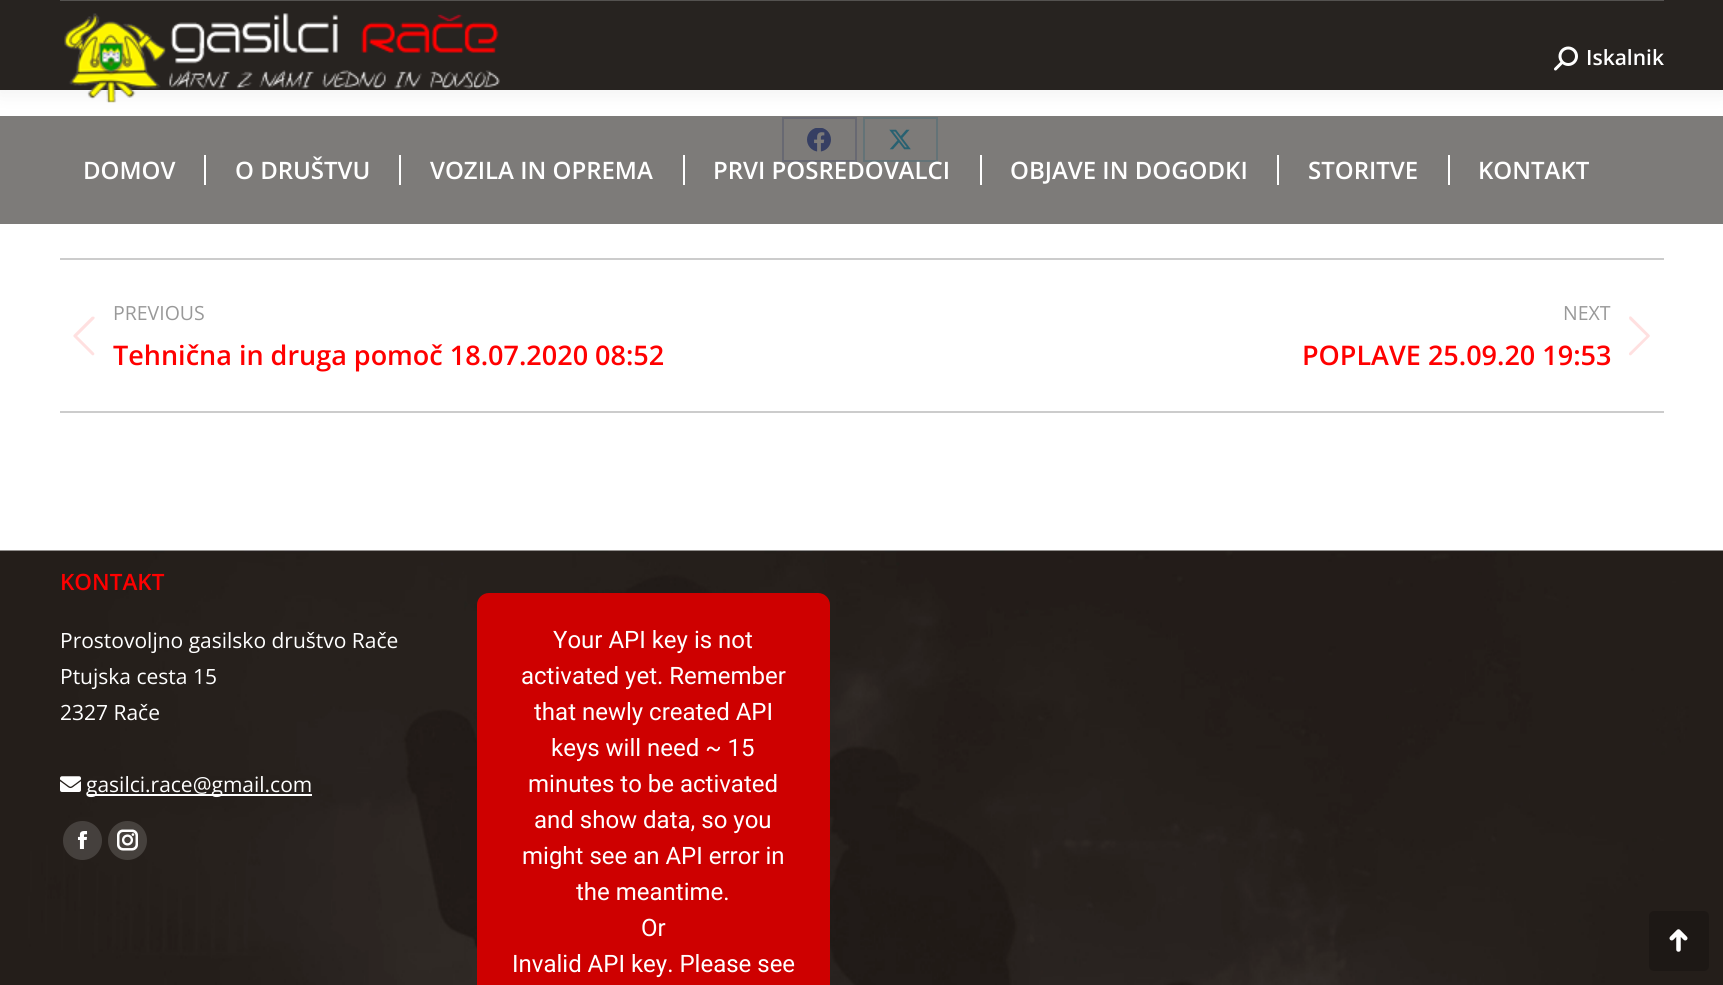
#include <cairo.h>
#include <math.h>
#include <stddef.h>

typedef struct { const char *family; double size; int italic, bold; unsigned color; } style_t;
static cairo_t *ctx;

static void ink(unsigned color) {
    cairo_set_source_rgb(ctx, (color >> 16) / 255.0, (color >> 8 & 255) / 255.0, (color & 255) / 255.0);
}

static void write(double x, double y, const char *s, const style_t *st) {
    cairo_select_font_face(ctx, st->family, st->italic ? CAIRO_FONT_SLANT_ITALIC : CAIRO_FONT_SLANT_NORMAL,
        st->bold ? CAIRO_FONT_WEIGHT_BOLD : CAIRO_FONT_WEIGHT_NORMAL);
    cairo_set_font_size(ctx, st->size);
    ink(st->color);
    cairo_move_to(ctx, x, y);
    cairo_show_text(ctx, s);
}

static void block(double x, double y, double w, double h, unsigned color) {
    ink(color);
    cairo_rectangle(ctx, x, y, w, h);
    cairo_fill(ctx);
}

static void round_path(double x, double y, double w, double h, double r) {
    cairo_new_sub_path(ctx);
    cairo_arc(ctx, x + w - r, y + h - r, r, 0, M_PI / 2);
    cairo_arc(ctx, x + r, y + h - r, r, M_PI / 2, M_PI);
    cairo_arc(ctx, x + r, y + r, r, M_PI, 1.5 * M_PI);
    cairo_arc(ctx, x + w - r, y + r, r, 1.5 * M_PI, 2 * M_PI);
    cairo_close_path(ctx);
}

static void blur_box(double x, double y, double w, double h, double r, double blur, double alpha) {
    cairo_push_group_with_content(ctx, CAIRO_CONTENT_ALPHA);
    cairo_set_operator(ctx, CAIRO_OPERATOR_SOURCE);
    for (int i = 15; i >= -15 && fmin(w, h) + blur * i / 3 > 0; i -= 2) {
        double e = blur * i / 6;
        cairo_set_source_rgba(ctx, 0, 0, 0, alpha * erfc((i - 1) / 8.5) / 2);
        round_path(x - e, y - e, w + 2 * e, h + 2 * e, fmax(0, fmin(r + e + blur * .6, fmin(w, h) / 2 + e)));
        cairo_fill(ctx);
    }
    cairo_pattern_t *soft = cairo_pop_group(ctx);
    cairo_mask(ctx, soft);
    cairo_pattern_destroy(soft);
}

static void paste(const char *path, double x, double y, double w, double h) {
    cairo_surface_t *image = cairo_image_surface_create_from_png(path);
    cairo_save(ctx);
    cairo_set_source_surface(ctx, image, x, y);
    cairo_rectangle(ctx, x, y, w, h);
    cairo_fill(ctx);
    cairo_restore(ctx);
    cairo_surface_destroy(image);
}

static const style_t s1 = {"Open Sans SemiBold", 21, 0, 0, 0xffffff};
static const style_t s2 = {"Open Sans SemiBold", 24, 0, 0, 0xffffff};
static const style_t s3 = {"Open Sans", 19.5, 0, 0, 0x999999};
static const style_t s4 = {"Open Sans SemiBold", 27, 0, 0, 0xff0000};
static const style_t s5 = {"Open Sans SemiBold", 22.5, 0, 0, 0xff0000};
static const style_t s6 = {"Open Sans", 21, 0, 0, 0xffffff};
static const style_t s7 = {"Roboto", 24, 0, 0, 0xffffff};

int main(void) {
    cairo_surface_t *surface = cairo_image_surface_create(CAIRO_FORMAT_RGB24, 1723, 985);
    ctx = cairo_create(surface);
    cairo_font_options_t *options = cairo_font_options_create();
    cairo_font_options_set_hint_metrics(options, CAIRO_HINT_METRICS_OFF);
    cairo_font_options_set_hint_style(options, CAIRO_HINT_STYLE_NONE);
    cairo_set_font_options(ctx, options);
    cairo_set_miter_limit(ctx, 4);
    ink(0xffffff);
    cairo_paint(ctx);
    block(0, 116, 1723, 108, 0x7d7b79);
    cairo_rectangle(ctx, 783, 118, 73, 43);
    ink(0x686972);
    cairo_stroke(ctx);
    cairo_rectangle(ctx, 864, 118, 73, 43);
    ink(0x647377);
    cairo_stroke(ctx);
    ink(0x000000);
    blur_box(-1, -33, 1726, 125, 0, 11, 0.07);
    block(0, 0, 1723, 90, 0x272320);
    block(60, 0, 1604, 1, 0x545250);
    paste("pic1.png", 64, 13, 436, 90);
    paste("pic2.png", 1554, 46, 24, 25);
    write(1586, 65, "Iskalnik", &s1);
    write(83, 179, "DOMOV", &s2);
    block(204, 155, 2, 30, 0xffffff);
    write(235, 179, "O DRUŠTVU", &s2);
    block(399, 155, 2, 30, 0xffffff);
    write(430, 179, "VOZILA IN OPREMA", &s2);
    block(683, 155, 2, 30, 0xffffff);
    write(713, 179, "PRVI POSREDOVALCI", &s2);
    block(980, 155, 2, 30, 0xffffff);
    write(1010, 179, "OBJAVE IN DOGODKI", &s2);
    block(1277, 155, 2, 30, 0xffffff);
    write(1308, 179, "STORITVE", &s2);
    block(1448, 155, 2, 30, 0xffffff);
    write(1478, 179, "KONTAKT", &s2);
    paste("pic3.png", 807, 128, 24, 24);
    paste("pic4.png", 889, 129, 22, 21);
    block(60, 258, 1604, 2, 0xcccccc);
    block(60, 411, 1604, 2, 0xcccccc);
    write(113, 320, "PREVIOUS", &s3);
    paste("pic5.png", 73, 316, 22, 40);
    write(113, 365, "Tehnična in druga pomoč 18.07.2020 08:52", &s4);
    write(1563, 320, "NEXT", &s3);
    write(1302, 365, "POPLAVE 25.09.20 19:53", &s4);
    paste("pic6.png", 1629, 316, 21, 40);
    paste("pic7.png", 0, 550, 1723, 435);
    write(60, 590, "KONTAKT", &s5);
    write(60, 648, "Prostovoljno gasilsko društvo Rače", &s6);
    write(60, 684, "Ptujska cesta 15", &s6);
    write(60, 720, "2327 Rače", &s6);
    paste("pic8.png", 60, 776, 21, 16);
    block(87, 794, 225, 2, 0xffffff);
    write(86, 792, "gasilci.race@gmail.com", &s6);
    cairo_set_source_rgba(ctx, 1, 1, 1, 0.15);
    cairo_new_path(ctx);
    cairo_arc(ctx, 82.5, 840.5, 19.5, 0, 2 * M_PI);
    cairo_fill(ctx);
    paste("pic9.png", 77, 831, 11, 18);
    ink(0x46413d);
    cairo_arc(ctx, 127.5, 840.5, 19.5, 0, 2 * M_PI);
    cairo_fill(ctx);
    paste("pic10.png", 117, 829, 21, 22);
    ink(0xce0000);
    round_path(477, 593, 353, 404, 12);
    cairo_fill(ctx);
    write(553, 648, "Your API key is not", &s7);
    write(521, 684, "activated yet. Remember", &s7);
    write(534, 720, "that newly created API", &s7);
    write(551, 756, "keys will need ~ 15", &s7);
    write(528, 792, "minutes to be activated", &s7);
    write(534, 828, "and show data, so you", &s7);
    write(522, 864, "might see an API error in", &s7);
    write(576, 900, "the meantime.", &s7);
    write(641, 936, "Or", &s7);
    write(512, 972, "Invalid API key. Please see", &s7);
    ink(0x1d1815);
    round_path(1649, 911, 60, 60, 5);
    cairo_fill(ctx);
    paste("pic11.png", 1669, 929, 19, 23);
    cairo_surface_write_to_png(surface, "screenshot.png");
    cairo_font_options_destroy(options);
    cairo_destroy(ctx);
    cairo_surface_destroy(surface);
    return 0;
}
